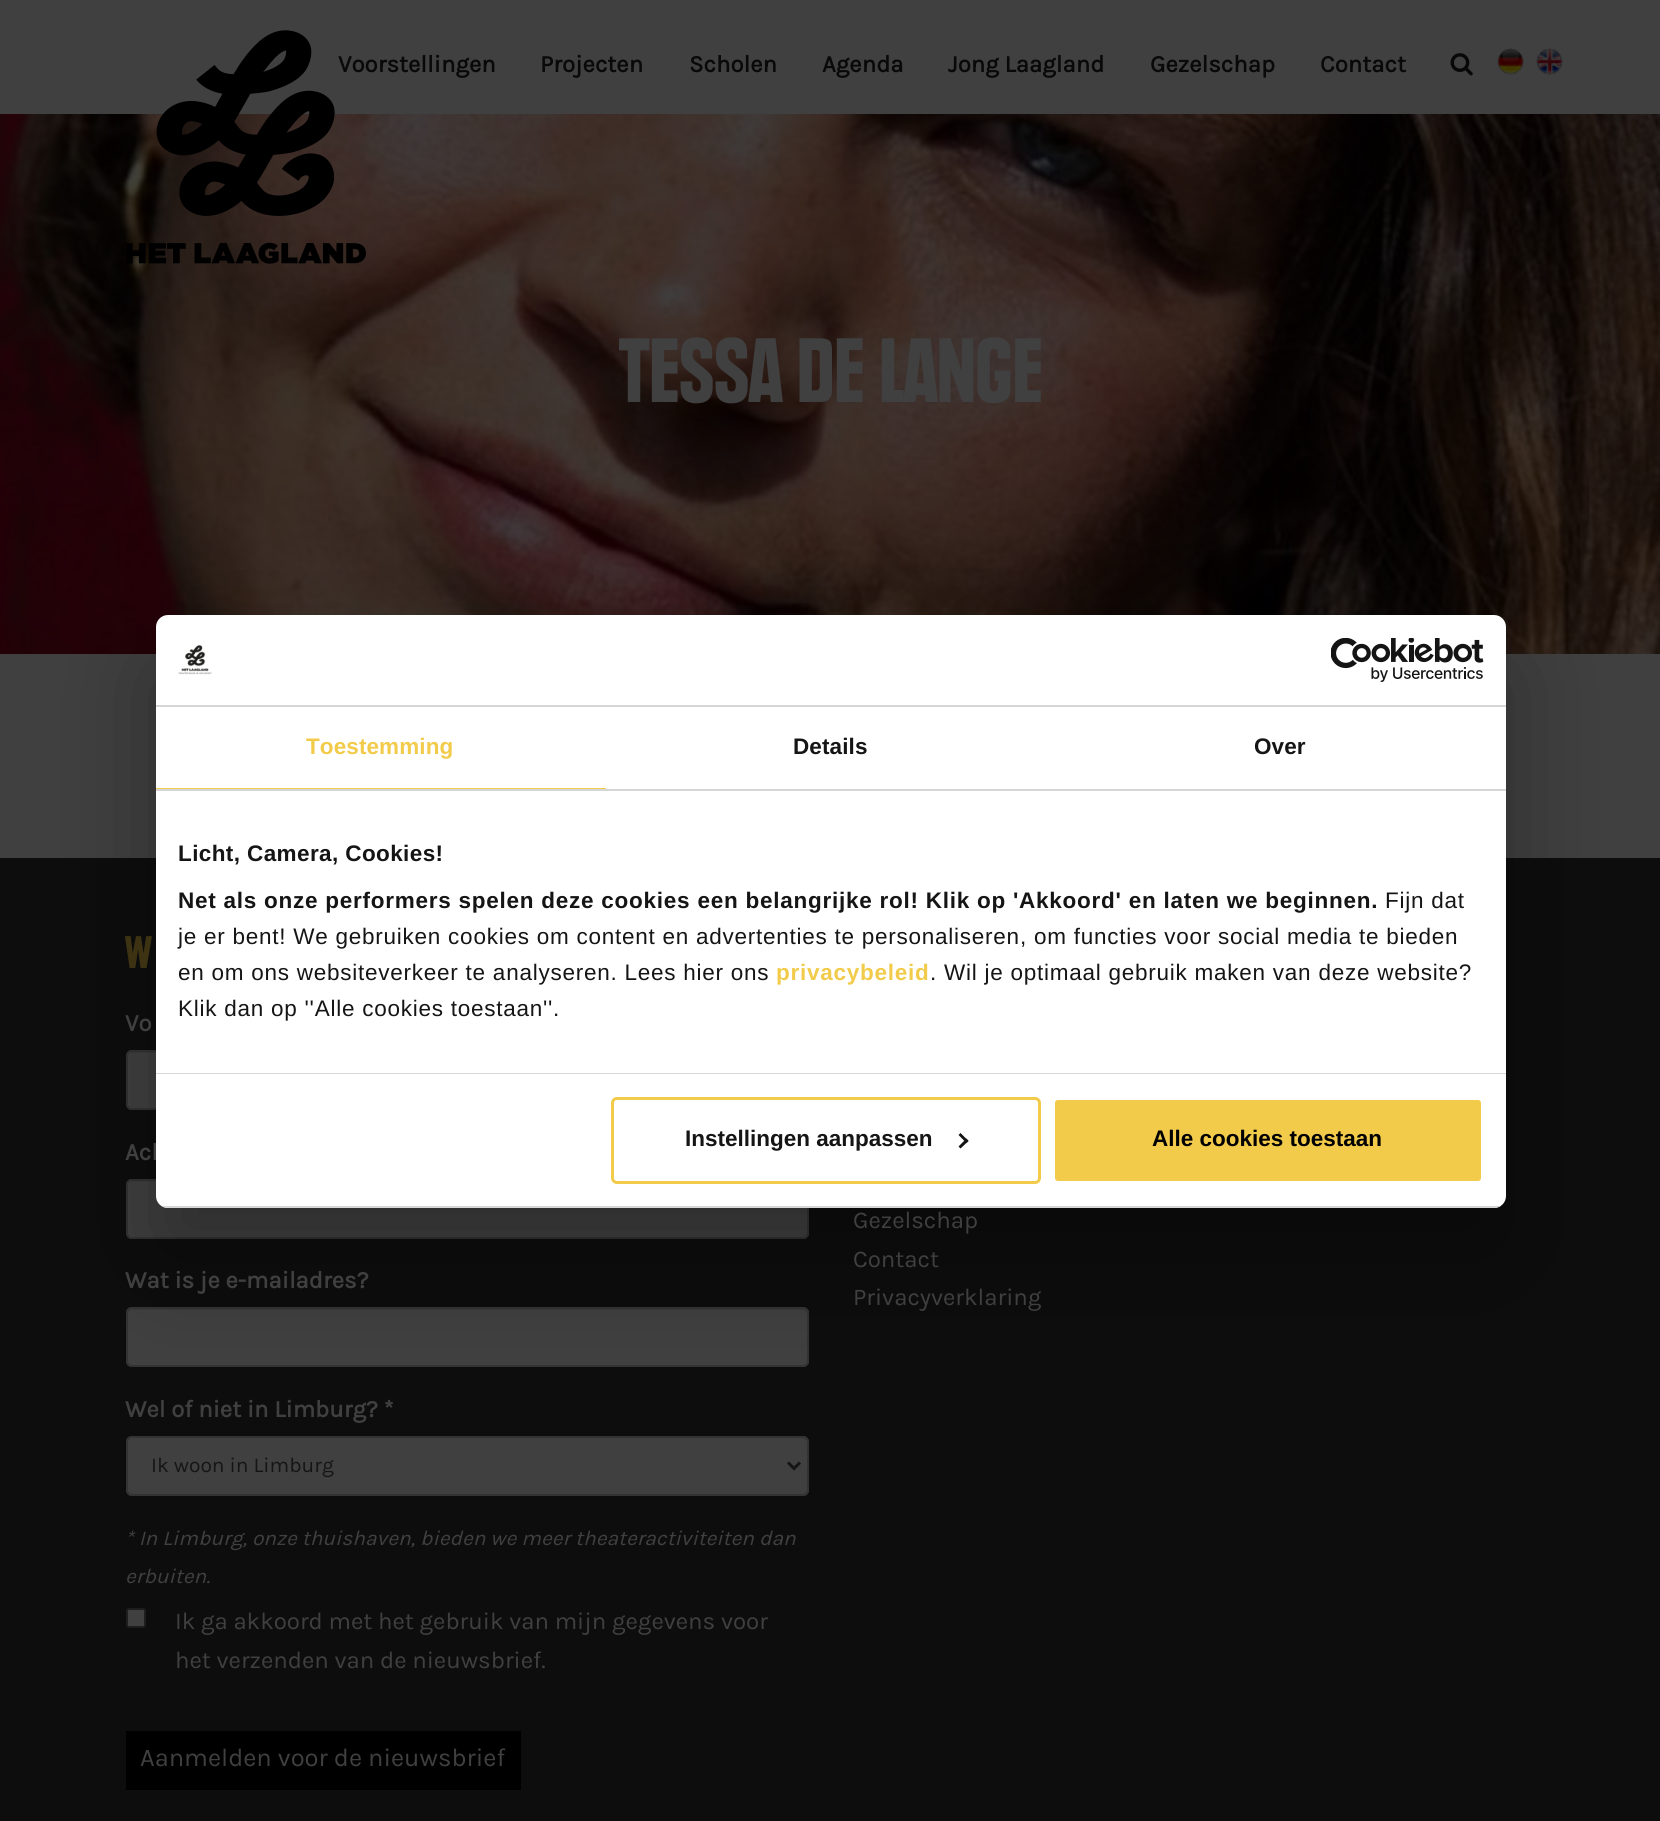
#include <cairo.h>
#include <math.h>
#include <stddef.h>

typedef struct { const char *family; double size; int italic, bold; unsigned color; } style_t;
static cairo_t *ctx;

static void ink(unsigned color) {
    cairo_set_source_rgb(ctx, (color >> 16) / 255.0, (color >> 8 & 255) / 255.0, (color & 255) / 255.0);
}

static void write(double x, double y, const char *s, const style_t *st) {
    cairo_select_font_face(ctx, st->family, st->italic ? CAIRO_FONT_SLANT_ITALIC : CAIRO_FONT_SLANT_NORMAL,
        st->bold ? CAIRO_FONT_WEIGHT_BOLD : CAIRO_FONT_WEIGHT_NORMAL);
    cairo_set_font_size(ctx, st->size);
    ink(st->color);
    cairo_move_to(ctx, x, y);
    cairo_show_text(ctx, s);
}

static void write_spaced(double x, double y, const char *s, double letter, double word) {
    cairo_move_to(ctx, x, y);
    while (*s) {
        char ch[5] = {0};
        int n = 0;
        do ch[n++] = *s++; while ((*s & 0xC0) == 0x80);
        cairo_show_text(ctx, ch);
        cairo_rel_move_to(ctx, letter + word * (*ch == ' '), 0);
    }
}

static void block(double x, double y, double w, double h, unsigned color) {
    ink(color);
    cairo_rectangle(ctx, x, y, w, h);
    cairo_fill(ctx);
}

static void round_path(double x, double y, double w, double h, double r) {
    cairo_new_sub_path(ctx);
    cairo_arc(ctx, x + w - r, y + h - r, r, 0, M_PI / 2);
    cairo_arc(ctx, x + r, y + h - r, r, M_PI / 2, M_PI);
    cairo_arc(ctx, x + r, y + r, r, M_PI, 1.5 * M_PI);
    cairo_arc(ctx, x + w - r, y + r, r, 1.5 * M_PI, 2 * M_PI);
    cairo_close_path(ctx);
}

static void blur_box(double x, double y, double w, double h, double r, double blur, double alpha) {
    cairo_push_group_with_content(ctx, CAIRO_CONTENT_ALPHA);
    cairo_set_operator(ctx, CAIRO_OPERATOR_SOURCE);
    for (int i = 15; i >= -15 && fmin(w, h) + blur * i / 3 > 0; i -= 2) {
        double e = blur * i / 6;
        cairo_set_source_rgba(ctx, 0, 0, 0, alpha * erfc((i - 1) / 8.5) / 2);
        round_path(x - e, y - e, w + 2 * e, h + 2 * e, fmax(0, fmin(r + e + blur * .6, fmin(w, h) / 2 + e)));
        cairo_fill(ctx);
    }
    cairo_pattern_t *soft = cairo_pop_group(ctx);
    cairo_mask(ctx, soft);
    cairo_pattern_destroy(soft);
}

static void paste(const char *path, double x, double y, double w, double h) {
    cairo_surface_t *image = cairo_image_surface_create_from_png(path);
    cairo_save(ctx);
    cairo_set_source_surface(ctx, image, x, y);
    cairo_rectangle(ctx, x, y, w, h);
    cairo_fill(ctx);
    cairo_restore(ctx);
    cairo_surface_destroy(image);
}

static const style_t s1 = {"Karla", 24, 0, 1, 0x090909};
static const style_t s2 = {"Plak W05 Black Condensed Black", 90, 0, 0, 0x404040};
static const style_t s3 = {"Karla", 24, 0, 1, 0x404040};
static const style_t s4 = {"Liberation Sans", 22.5, 0, 1, 0x151515};
static const style_t s5 = {"Liberation Sans", 22.5, 0, 1, 0x000000};
static const style_t s6 = {"Plak W05 Black Condensed Black", 45, 0, 0, 0x3d3313};
static const style_t s7 = {"Karla", 21, 0, 0, 0x151515};
static const style_t s8 = {"Karla", 21, 1, 0, 0x404040};
static const style_t s9 = {"Karla", 24, 0, 0, 0x404040};
static const style_t s10 = {"Karla", 25.5, 0, 0, 0x404040};

int main(void) {
    cairo_surface_t *surface = cairo_image_surface_create(CAIRO_FORMAT_RGB24, 1660, 1821);
    ctx = cairo_create(surface);
    cairo_font_options_t *options = cairo_font_options_create();
    cairo_font_options_set_hint_metrics(options, CAIRO_HINT_METRICS_OFF);
    cairo_font_options_set_hint_style(options, CAIRO_HINT_STYLE_NONE);
    cairo_set_font_options(ctx, options);
    cairo_set_miter_limit(ctx, 4);
    ink(0x404040);
    cairo_paint(ctx);
    write(338, 72, "Voorstellingen", &s1);
    paste("pic5.png", 0, 114, 1660, 540);
    paste("pic1.png", 126, 30, 240, 234);
    write(540, 72, "Projecten", &s1);
    write(689, 72, "Scholen", &s1);
    write(822, 72, "Agenda", &s1);
    write(948, 72, "Jong Laagland", &s1);
    write(1150, 72, "Gezelschap", &s1);
    write(1320, 72, "Contact", &s1);
    paste("pic2.png", 1450, 53, 23, 23);
    paste("pic3.png", 1497, 48, 27, 27);
    paste("pic4.png", 1536, 48, 27, 27);
    write(619, 402, "TESSA DE LANGE", &s2);
    block(0, 858, 1660, 963, 0x0d0d0d);
    ink(0x404040);
    round_path(126, 1050, 683, 60, 6);
    cairo_fill(ctx);
    ink(0x3b3b3b);
    cairo_new_path(ctx);
    cairo_move_to(ctx, 132, 1053);
    cairo_line_to(ctx, 802, 1053);
    cairo_curve_to(ctx, 805, 1053, 807, 1055, 807, 1058);
    cairo_line_to(ctx, 807, 1057);
    cairo_curve_to(ctx, 807, 1054, 805, 1052, 802, 1052);
    cairo_line_to(ctx, 133, 1052);
    cairo_curve_to(ctx, 130, 1052, 128, 1054, 128, 1057);
    cairo_line_to(ctx, 128, 1058);
    cairo_curve_to(ctx, 128, 1055, 130, 1053, 132, 1053);
    cairo_close_path(ctx);
    cairo_fill(ctx);
    round_path(127, 1051, 681, 58, 5);
    ink(0x333333);
    cairo_stroke(ctx);
    ink(0x404040);
    round_path(126, 1179, 683, 60, 6);
    cairo_fill(ctx);
    ink(0x3b3b3b);
    cairo_new_path(ctx);
    cairo_move_to(ctx, 132, 1182);
    cairo_line_to(ctx, 802, 1182);
    cairo_curve_to(ctx, 805, 1182, 807, 1184, 807, 1186);
    cairo_curve_to(ctx, 807, 1183, 805, 1181, 802, 1181);
    cairo_line_to(ctx, 133, 1181);
    cairo_curve_to(ctx, 130, 1181, 128, 1183, 128, 1186);
    cairo_curve_to(ctx, 128, 1184, 130, 1182, 132, 1182);
    cairo_close_path(ctx);
    cairo_fill(ctx);
    round_path(127, 1180, 681, 58, 5);
    ink(0x333333);
    cairo_stroke(ctx);
    ink(0x404040);
    round_path(126, 1307, 683, 60, 6);
    cairo_fill(ctx);
    ink(0x3b3b3b);
    cairo_new_path(ctx);
    cairo_move_to(ctx, 132, 1310);
    cairo_line_to(ctx, 802, 1310);
    cairo_curve_to(ctx, 805, 1310, 807, 1312, 807, 1314);
    cairo_line_to(ctx, 807, 1313);
    cairo_curve_to(ctx, 807, 1310, 805, 1308, 802, 1308);
    cairo_line_to(ctx, 133, 1308);
    cairo_curve_to(ctx, 130, 1308, 128, 1310, 128, 1313);
    cairo_line_to(ctx, 128, 1314);
    cairo_curve_to(ctx, 128, 1312, 130, 1310, 132, 1310);
    cairo_close_path(ctx);
    cairo_fill(ctx);
    round_path(127, 1308, 681, 58, 5);
    ink(0x333333);
    cairo_stroke(ctx);
    ink(0x000000);
    blur_box(156, 663, 1350, 593, 12, 51, 0.3);
    write(125, 1160, "Ach", &s3);
    ink(0xffffff);
    round_path(156, 615, 1350, 593, 12);
    cairo_fill(ctx);
    block(156, 705, 1350, 2, 0xd6d6d6);
    paste("pic6.png", 178, 645, 34, 30);
    paste("pic7.png", 1331, 638, 153, 44);
    block(156, 789, 1350, 2, 0xd6d6d6);
    block(156, 788, 450, 1, 0xf2cb4a);
    cairo_select_font_face(ctx, "Liberation Sans", CAIRO_FONT_SLANT_NORMAL, CAIRO_FONT_WEIGHT_BOLD);
    cairo_set_font_size(ctx, 22.5);
    write_spaced(306, 754, "Toestemming", 0.1, 0);
    ink(0x151515);
    write_spaced(793, 754, "Details", 0.1, 0);
    write_spaced(1254, 754, "Over", 0.1, 0);
    block(156, 1073, 1350, 1, 0xd6d6d6);
    ink(0x151515);
    write_spaced(178, 861, "Licht, Camera, Cookies!", 0.4, 0);
    write_spaced(178, 908, "Net als onze performers spelen deze cookies een belangrijke rol! Klik op 'Akkoord' en laten we beginnen.", 0.75, 0);
    cairo_select_font_face(ctx, "Liberation Sans", CAIRO_FONT_SLANT_NORMAL, CAIRO_FONT_WEIGHT_NORMAL);
    write_spaced(1385, 908, "Fijn dat", 0.75, 0);
    write_spaced(178, 944, "je er bent! We gebruiken cookies om content en advertenties te personaliseren, om functies voor social media te bieden", 0.75, 0);
    write_spaced(178, 980, "en om ons websiteverkeer te analyseren. Lees hier ons", 0.75, 0);
    cairo_select_font_face(ctx, "Liberation Sans", CAIRO_FONT_SLANT_NORMAL, CAIRO_FONT_WEIGHT_BOLD);
    ink(0xf2cb4a);
    write_spaced(776, 980, "privacybeleid", 0.75, 0);
    cairo_select_font_face(ctx, "Liberation Sans", CAIRO_FONT_SLANT_NORMAL, CAIRO_FONT_WEIGHT_NORMAL);
    ink(0x151515);
    write_spaced(930, 980, ". Wil je optimaal gebruik maken van deze website?", 0.75, 0);
    write_spaced(178, 1016, "Klik dan op ''Alle cookies toestaan''.", 0.75, 0);
    cairo_save(ctx);
    round_path(156, 615, 1350, 593, 12);
    cairo_clip(ctx);
    block(156, 1206, 1350, 2, 0xd6d6d6);
    cairo_restore(ctx);
    round_path(612.5, 1098.5, 427, 84, 4.5);
    ink(0xf2cb4a);
    cairo_set_line_width(ctx, 3);
    cairo_stroke(ctx);
    write(685, 1146, "Instellingen aanpassen", &s4);
    ink(0x141414);
    cairo_new_path(ctx);
    cairo_move_to(ctx, 960.5, 1133);
    cairo_line_to(ctx, 968.5, 1141);
    cairo_line_to(ctx, 966.5, 1143);
    cairo_line_to(ctx, 958.5, 1135);
    cairo_close_path(ctx);
    cairo_fill(ctx);
    cairo_new_path(ctx);
    cairo_move_to(ctx, 966.5, 1138.5);
    cairo_line_to(ctx, 968.5, 1141);
    cairo_line_to(ctx, 960.5, 1148.5);
    cairo_line_to(ctx, 958.5, 1146.5);
    cairo_close_path(ctx);
    cairo_fill(ctx);
    ink(0xf2cb4a);
    round_path(1053.5, 1098.5, 429, 84, 4.5);
    cairo_fill_preserve(ctx);
    ink(0xffffff);
    cairo_stroke(ctx);
    write(1152, 1146, "Alle cookies toestaan", &s5);
    write(125, 968, "W", &s6);
    write(125, 1031, "Vo", &s3);
    write(125, 1288, "Wat is je e-mailadres?", &s3);
    write(125, 1417, "Wel of niet in Limburg? *", &s3);
    round_path(126, 1436, 683, 60, 6);
    cairo_fill(ctx);
    ink(0x3b3b3b);
    cairo_new_path(ctx);
    cairo_move_to(ctx, 132, 1438);
    cairo_line_to(ctx, 802, 1438);
    cairo_curve_to(ctx, 805, 1438, 807, 1441, 807, 1443);
    cairo_line_to(ctx, 807, 1442);
    cairo_curve_to(ctx, 807, 1439, 805, 1437, 802, 1437);
    cairo_line_to(ctx, 133, 1437);
    cairo_curve_to(ctx, 130, 1437, 128, 1439, 128, 1442);
    cairo_line_to(ctx, 128, 1443);
    cairo_curve_to(ctx, 128, 1441, 130, 1438, 132, 1438);
    cairo_close_path(ctx);
    cairo_fill(ctx);
    round_path(127, 1437, 681, 58, 5);
    ink(0x333333);
    cairo_set_line_width(ctx, 2);
    cairo_stroke(ctx);
    cairo_new_path(ctx);
    cairo_move_to(ctx, 788, 1462.5);
    cairo_line_to(ctx, 794, 1468.5);
    cairo_line_to(ctx, 800, 1462.5);
    ink(0x151515);
    cairo_set_line_width(ctx, 3);
    cairo_stroke(ctx);
    write(151, 1472, "Ik woon in Limburg", &s7);
    write(125, 1545, "* In Limburg, onze thuishaven, bieden we meer theateractiviteiten dan", &s8);
    write(125, 1583, "erbuiten.", &s8);
    round_path(127, 1609, 18, 18, 2);
    cairo_fill_preserve(ctx);
    ink(0x1e1e1e);
    cairo_set_line_width(ctx, 2);
    cairo_stroke(ctx);
    write(175, 1629, "Ik ga akkoord met het gebruik van mijn gegevens voor", &s9);
    write(175, 1668, "het verzenden van de nieuwsbrief.", &s9);
    block(126, 1731, 395, 59, 0x000000);
    write(140, 1766, "Aanmelden voor de nieuwsbrief", &s10);
    write(853, 1228, "Gezelschap", &s9);
    write(853, 1267, "Contact", &s9);
    write(853, 1305, "Privacyverklaring", &s9);
    cairo_surface_write_to_png(surface, "screenshot.png");
    cairo_font_options_destroy(options);
    cairo_destroy(ctx);
    cairo_surface_destroy(surface);
    return 0;
}
